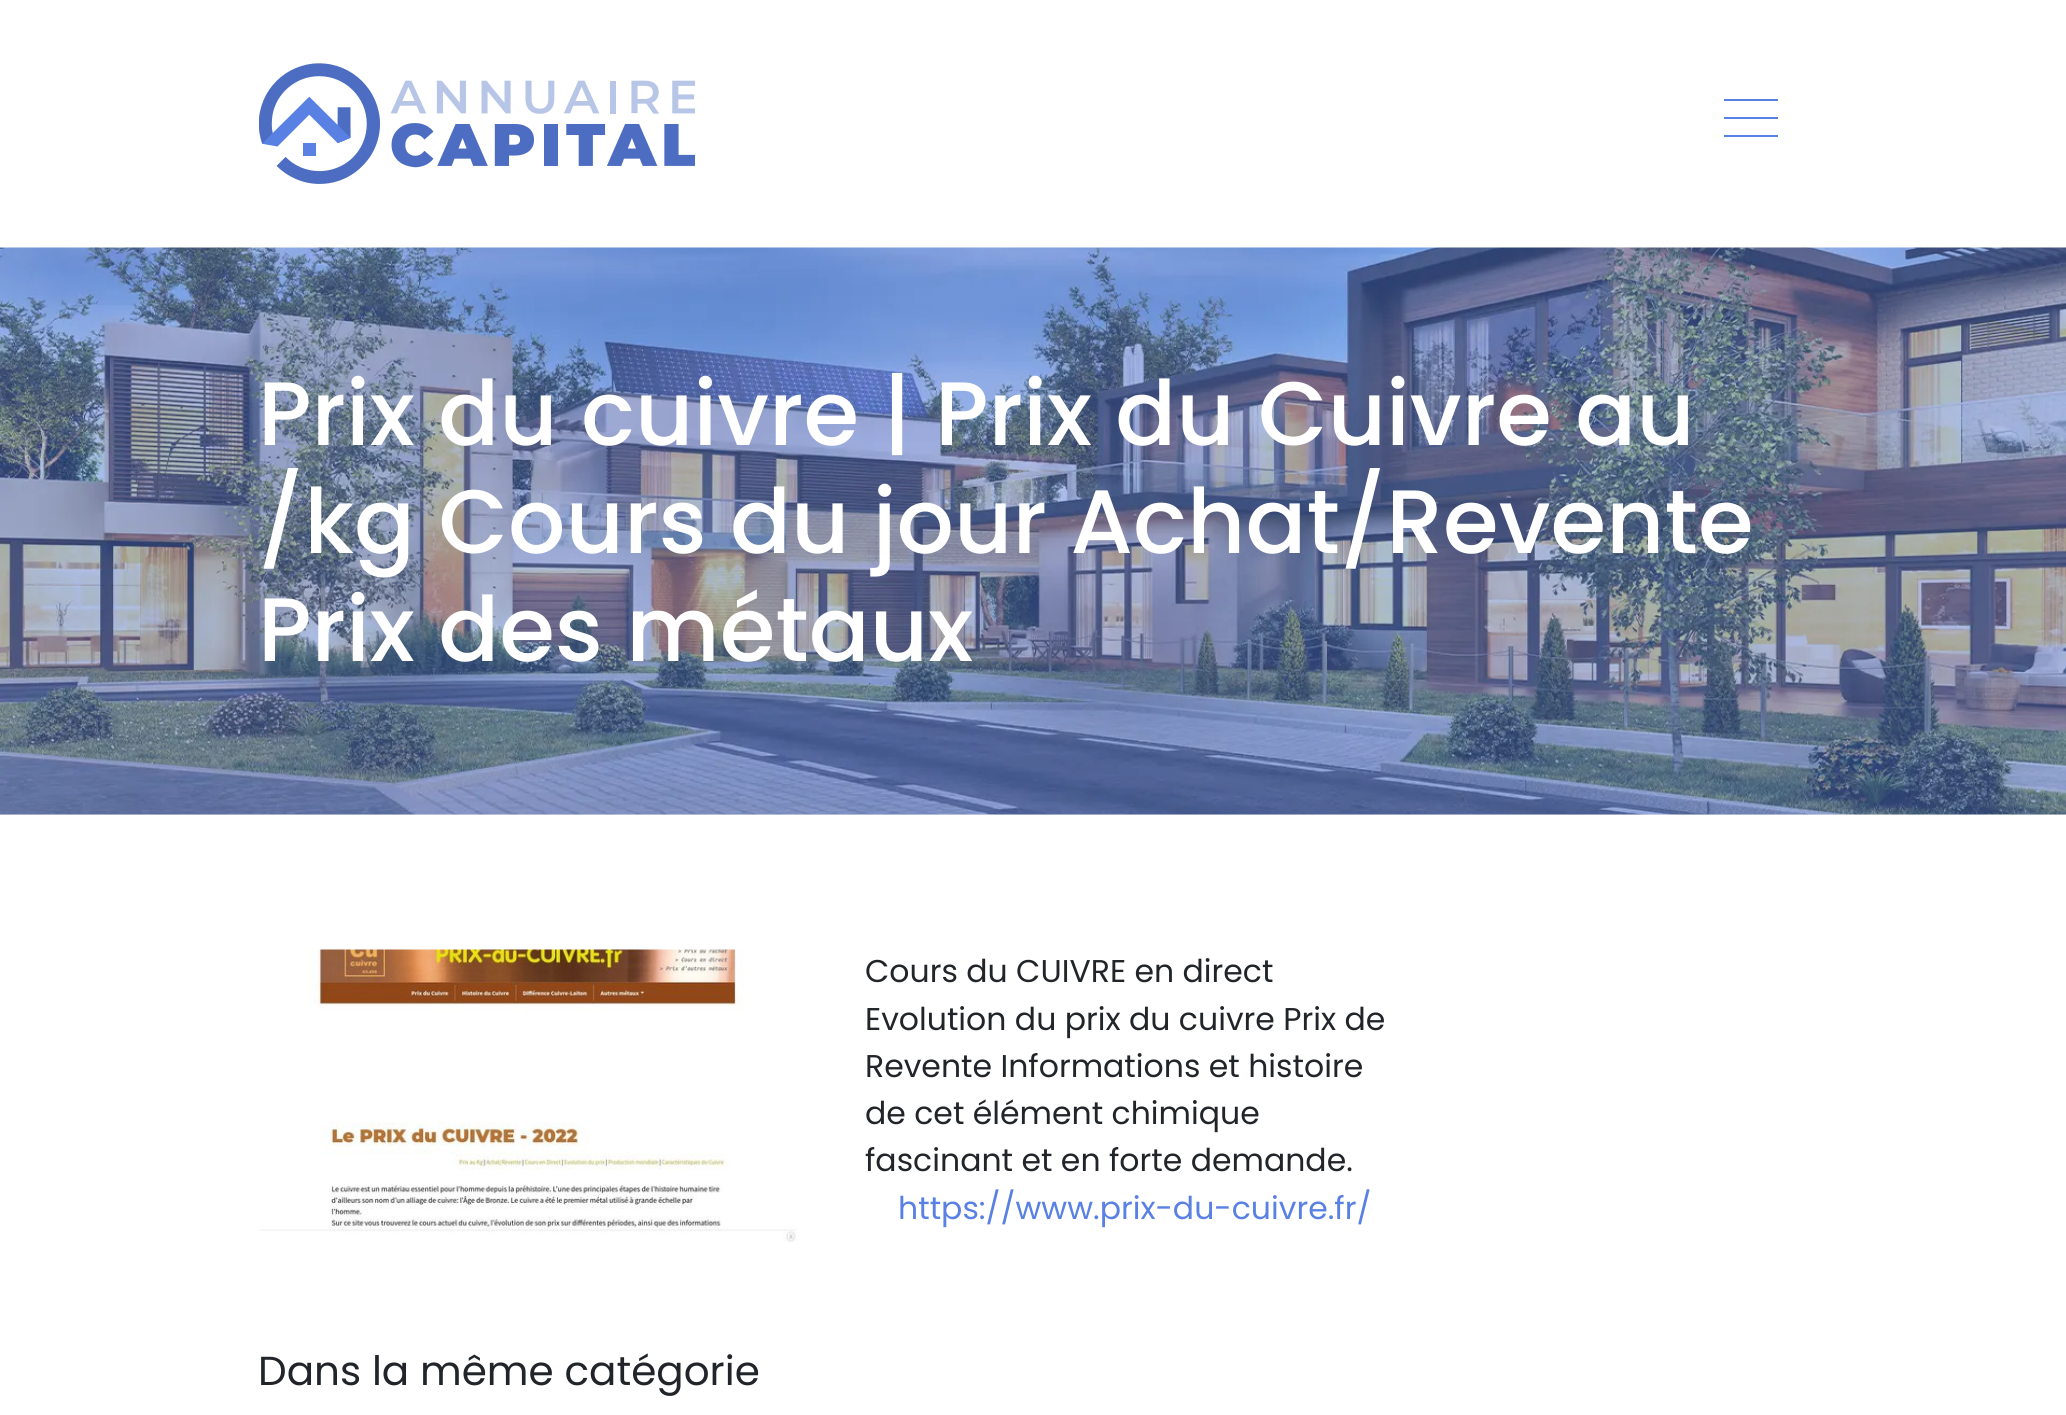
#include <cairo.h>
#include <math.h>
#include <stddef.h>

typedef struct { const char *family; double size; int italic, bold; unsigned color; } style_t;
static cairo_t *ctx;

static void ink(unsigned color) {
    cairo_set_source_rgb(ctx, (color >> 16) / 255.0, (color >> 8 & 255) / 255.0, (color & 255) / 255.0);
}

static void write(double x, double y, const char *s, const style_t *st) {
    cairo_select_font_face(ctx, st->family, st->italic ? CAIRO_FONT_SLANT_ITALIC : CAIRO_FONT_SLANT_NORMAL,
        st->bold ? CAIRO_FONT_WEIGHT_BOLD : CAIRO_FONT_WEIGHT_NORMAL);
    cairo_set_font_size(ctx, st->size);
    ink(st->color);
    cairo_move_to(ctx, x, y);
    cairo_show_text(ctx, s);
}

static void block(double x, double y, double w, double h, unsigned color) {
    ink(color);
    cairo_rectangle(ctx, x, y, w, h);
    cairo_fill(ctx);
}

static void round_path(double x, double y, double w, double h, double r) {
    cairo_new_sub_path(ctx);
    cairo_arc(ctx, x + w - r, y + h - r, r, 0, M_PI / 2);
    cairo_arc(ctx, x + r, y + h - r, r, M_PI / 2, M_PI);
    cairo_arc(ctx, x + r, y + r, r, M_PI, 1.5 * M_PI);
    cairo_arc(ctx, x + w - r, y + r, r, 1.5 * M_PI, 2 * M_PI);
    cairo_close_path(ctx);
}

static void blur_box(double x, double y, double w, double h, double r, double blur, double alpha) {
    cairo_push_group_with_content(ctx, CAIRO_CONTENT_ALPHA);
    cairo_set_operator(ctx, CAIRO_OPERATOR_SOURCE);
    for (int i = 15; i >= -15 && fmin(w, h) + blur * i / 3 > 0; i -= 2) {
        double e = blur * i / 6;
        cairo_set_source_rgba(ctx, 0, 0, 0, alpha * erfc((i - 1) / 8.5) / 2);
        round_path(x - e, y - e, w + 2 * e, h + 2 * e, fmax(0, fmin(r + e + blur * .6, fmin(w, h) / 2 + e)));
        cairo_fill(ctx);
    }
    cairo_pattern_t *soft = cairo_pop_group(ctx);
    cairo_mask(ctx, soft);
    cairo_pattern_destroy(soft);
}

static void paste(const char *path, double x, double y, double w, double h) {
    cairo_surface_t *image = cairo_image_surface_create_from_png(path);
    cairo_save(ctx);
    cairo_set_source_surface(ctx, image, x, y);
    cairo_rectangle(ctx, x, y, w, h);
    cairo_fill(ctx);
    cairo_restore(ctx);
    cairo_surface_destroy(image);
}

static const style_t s1 = {"Poppins Medium", 90, 0, 0, 0xffffff};
static const style_t s2 = {"Poppins", 31.5, 0, 0, 0x212529};
static const style_t s3 = {"Poppins", 31.5, 0, 0, 0x5980e3};
static const style_t s4 = {"Poppins", 40.5, 0, 0, 0x212529};

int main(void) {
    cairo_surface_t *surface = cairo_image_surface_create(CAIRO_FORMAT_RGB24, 2066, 1415);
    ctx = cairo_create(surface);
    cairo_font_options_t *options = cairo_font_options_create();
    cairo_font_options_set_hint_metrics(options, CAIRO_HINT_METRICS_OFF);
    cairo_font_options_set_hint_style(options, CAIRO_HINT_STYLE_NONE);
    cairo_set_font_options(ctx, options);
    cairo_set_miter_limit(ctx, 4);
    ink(0xffffff);
    cairo_paint(ctx);
    cairo_save(ctx);
    cairo_set_fill_rule(ctx, CAIRO_FILL_RULE_EVEN_ODD);
    cairo_new_path(ctx);
    cairo_move_to(ctx, 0, 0);
    cairo_line_to(ctx, 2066, 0);
    cairo_line_to(ctx, 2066, 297);
    cairo_line_to(ctx, 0, 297);
    cairo_close_path(ctx);
    cairo_move_to(ctx, 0, 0);
    cairo_line_to(ctx, 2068, 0);
    cairo_line_to(ctx, 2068, 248);
    cairo_line_to(ctx, 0, 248);
    cairo_close_path(ctx);
    cairo_clip(ctx);
    ink(0x000000);
    blur_box(0, 5, 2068, 247, 0, 14.5, 0.1);
    cairo_restore(ctx);
    paste("pic1.png", 259, 63, 436, 121);
    block(1724, 99, 54, 2, 0x5980e3);
    block(1724, 117, 54, 2, 0x5980e3);
    block(1724, 135, 54, 2, 0x5980e3);
    block(0, 814, 2066, 1, 0xeeeeee);
    paste("pic2.png", 0, 247, 2066, 568);
    write(258, 445, "Prix du cuivre | Prix du Cuivre au", &s1);
    write(258, 553, "/kg Cours du jour Achat/Revente", &s1);
    write(258, 661, "Prix des métaux", &s1);
    paste("pic3.png", 259, 949, 538, 293);
    write(865, 982, "Cours du CUIVRE en direct", &s2);
    write(865, 1030, "Evolution du prix du cuivre Prix de", &s2);
    write(865, 1077, "Revente Informations et histoire", &s2);
    write(865, 1124, "de cet élément chimique", &s2);
    write(865, 1171, "fascinant et en forte demande.", &s2);
    write(898, 1219, "https://www.prix-du-cuivre.fr/", &s3);
    write(258, 1385, "Dans la même catégorie", &s4);
    cairo_surface_write_to_png(surface, "screenshot.png");
    cairo_font_options_destroy(options);
    cairo_destroy(ctx);
    cairo_surface_destroy(surface);
    return 0;
}
